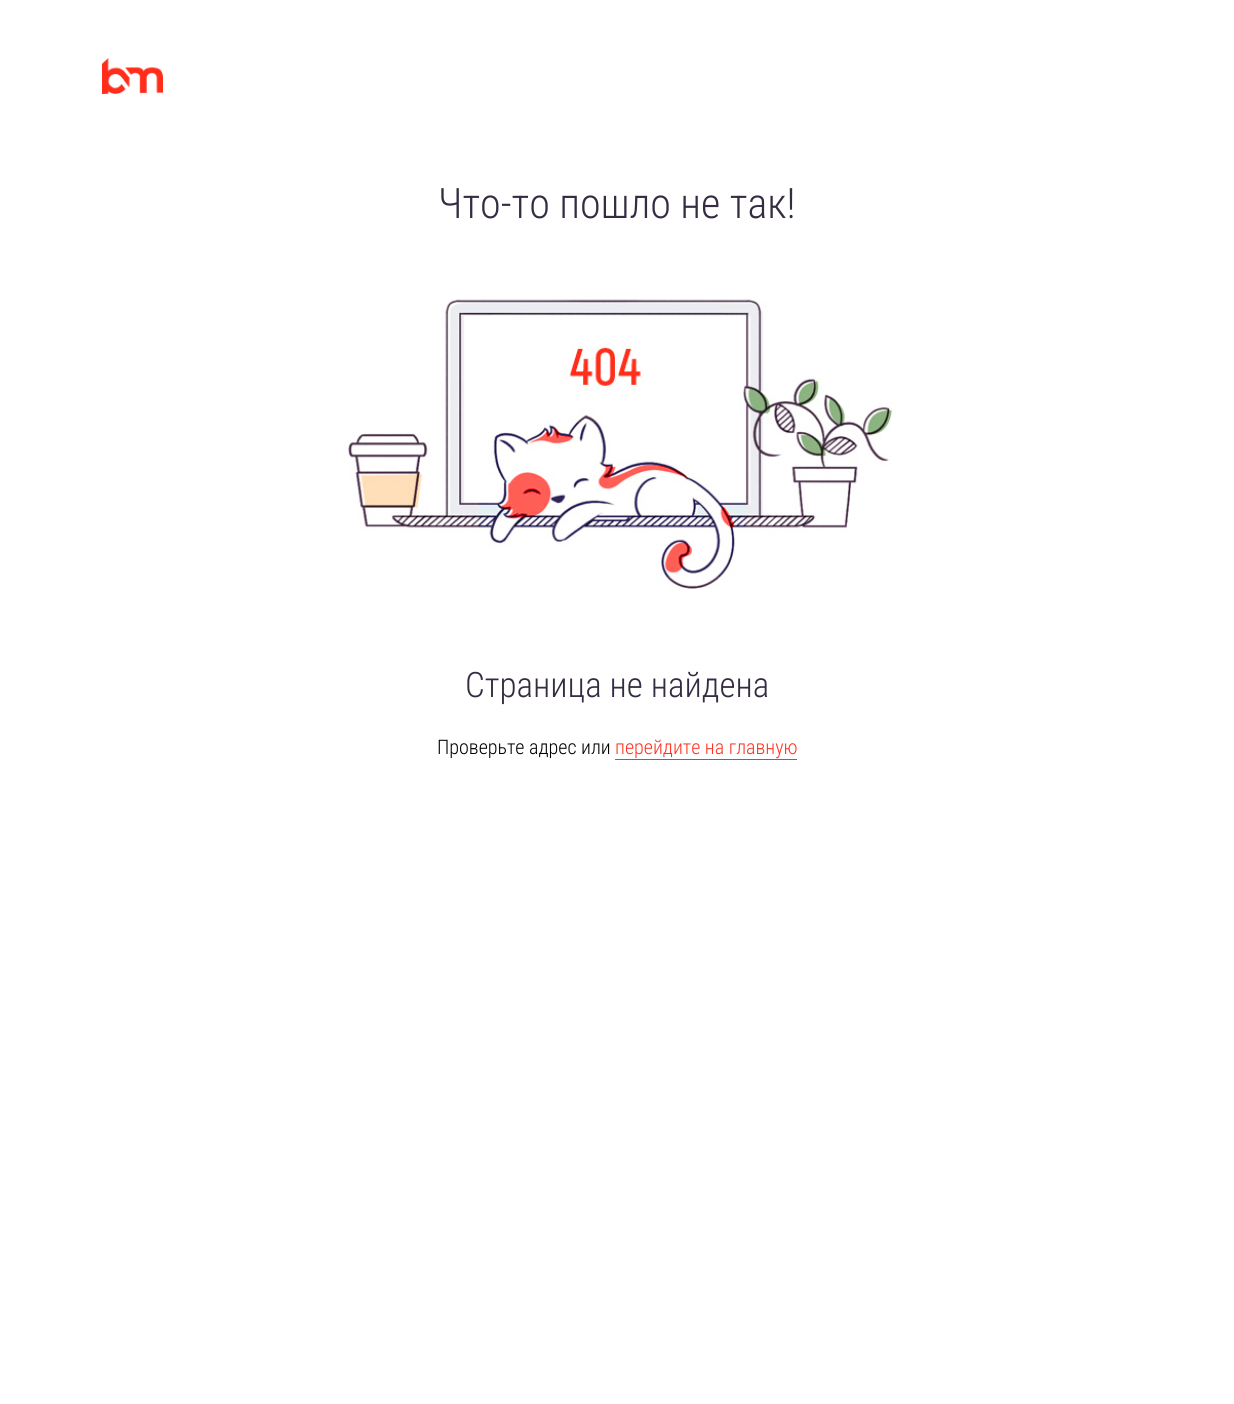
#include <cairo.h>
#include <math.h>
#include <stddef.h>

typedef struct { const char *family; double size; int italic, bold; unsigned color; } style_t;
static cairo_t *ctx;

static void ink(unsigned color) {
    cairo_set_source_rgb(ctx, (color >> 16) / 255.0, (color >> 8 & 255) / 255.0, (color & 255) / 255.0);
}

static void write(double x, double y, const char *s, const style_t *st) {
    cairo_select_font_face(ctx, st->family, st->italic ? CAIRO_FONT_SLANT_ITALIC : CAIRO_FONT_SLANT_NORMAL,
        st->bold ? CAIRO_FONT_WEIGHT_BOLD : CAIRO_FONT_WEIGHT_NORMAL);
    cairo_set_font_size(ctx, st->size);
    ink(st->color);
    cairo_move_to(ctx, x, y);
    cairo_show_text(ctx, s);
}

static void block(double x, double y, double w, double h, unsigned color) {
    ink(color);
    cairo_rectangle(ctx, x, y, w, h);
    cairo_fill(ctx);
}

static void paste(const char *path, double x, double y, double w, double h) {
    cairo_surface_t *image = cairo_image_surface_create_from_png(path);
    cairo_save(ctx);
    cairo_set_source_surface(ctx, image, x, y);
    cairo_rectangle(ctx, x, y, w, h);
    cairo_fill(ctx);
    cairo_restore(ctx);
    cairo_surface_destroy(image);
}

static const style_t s1 = {"Roboto Condensed Light", 42, 0, 0, 0x352c41};
static const style_t s2 = {"Roboto Condensed Light", 35, 0, 0, 0x352c41};
static const style_t s3 = {"Roboto Condensed Light", 20, 0, 0, 0x000000};
static const style_t s4 = {"Roboto Condensed Light", 20, 0, 0, 0xff3221};

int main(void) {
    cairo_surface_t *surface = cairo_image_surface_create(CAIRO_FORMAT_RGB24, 1234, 1404);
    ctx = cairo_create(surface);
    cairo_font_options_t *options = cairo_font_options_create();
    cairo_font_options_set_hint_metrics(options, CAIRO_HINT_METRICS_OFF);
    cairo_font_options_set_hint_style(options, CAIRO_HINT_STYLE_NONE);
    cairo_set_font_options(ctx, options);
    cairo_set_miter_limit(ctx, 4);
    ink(0xffffff);
    cairo_paint(ctx);
    paste("pic1.png", 102, 58, 61, 36);
    write(438, 218, "Что-то пошло не так!", &s1);
    paste("pic2.png", 348, 299, 549, 290);
    write(465, 697, "Страница не найдена", &s2);
    write(437, 754, "Проверьте адрес или", &s3);
    write(615, 754, "перейдите на главную", &s4);
    block(615, 759, 182, 1, 0xff3221);
    cairo_surface_write_to_png(surface, "screenshot.png");
    cairo_font_options_destroy(options);
    cairo_destroy(ctx);
    cairo_surface_destroy(surface);
    return 0;
}
